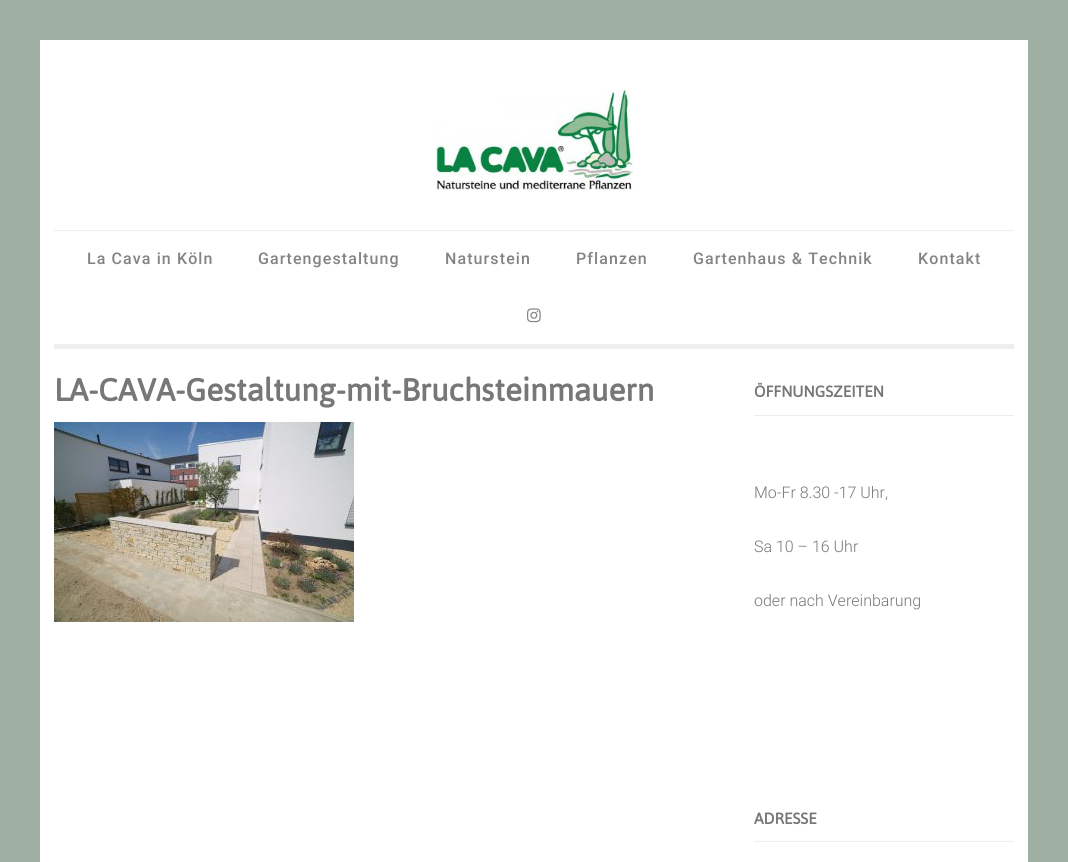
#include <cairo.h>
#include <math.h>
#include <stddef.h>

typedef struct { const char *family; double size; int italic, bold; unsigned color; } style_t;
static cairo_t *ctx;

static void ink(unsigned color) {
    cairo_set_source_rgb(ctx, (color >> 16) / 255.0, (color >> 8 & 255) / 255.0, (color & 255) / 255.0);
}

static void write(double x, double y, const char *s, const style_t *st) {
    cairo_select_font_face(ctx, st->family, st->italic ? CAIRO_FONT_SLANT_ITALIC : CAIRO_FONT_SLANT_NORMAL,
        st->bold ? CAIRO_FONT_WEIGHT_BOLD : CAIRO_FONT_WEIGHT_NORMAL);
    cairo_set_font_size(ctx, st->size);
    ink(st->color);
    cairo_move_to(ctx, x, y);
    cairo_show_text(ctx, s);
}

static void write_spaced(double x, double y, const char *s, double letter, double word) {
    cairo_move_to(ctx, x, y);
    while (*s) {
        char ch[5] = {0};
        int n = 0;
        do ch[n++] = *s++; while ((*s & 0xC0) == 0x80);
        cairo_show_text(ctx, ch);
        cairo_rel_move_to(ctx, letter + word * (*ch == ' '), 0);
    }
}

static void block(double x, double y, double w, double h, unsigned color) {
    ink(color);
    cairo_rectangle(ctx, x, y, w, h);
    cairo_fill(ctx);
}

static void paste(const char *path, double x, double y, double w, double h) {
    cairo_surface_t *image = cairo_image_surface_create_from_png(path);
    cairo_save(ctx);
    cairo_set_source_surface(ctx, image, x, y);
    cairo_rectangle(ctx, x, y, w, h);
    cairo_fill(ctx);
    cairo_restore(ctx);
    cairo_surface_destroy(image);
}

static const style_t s1 = {"Jaldi", 36, 0, 1, 0x777777};
static const style_t s2 = {"Jaldi", 18, 0, 1, 0x777777};
static const style_t s3 = {"Roboto Light", 16, 0, 0, 0x777777};

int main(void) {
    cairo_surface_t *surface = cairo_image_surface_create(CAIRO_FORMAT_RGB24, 1068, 862);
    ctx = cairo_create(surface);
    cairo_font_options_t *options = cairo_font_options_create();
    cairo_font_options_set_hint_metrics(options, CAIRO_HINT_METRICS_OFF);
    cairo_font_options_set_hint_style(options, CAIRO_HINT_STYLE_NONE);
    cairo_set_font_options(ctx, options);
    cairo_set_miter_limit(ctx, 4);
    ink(0x9faea2);
    cairo_paint(ctx);
    block(40, 40, 988, 822, 0xffffff);
    block(54, 230, 960, 1, 0xeeeeee);
    paste("pic1.png", 436, 90, 197, 100);
    block(54, 344, 960, 5, 0xeeeeee);
    cairo_select_font_face(ctx, "Roboto Medium", CAIRO_FONT_SLANT_NORMAL, CAIRO_FONT_WEIGHT_NORMAL);
    cairo_set_font_size(ctx, 16);
    ink(0x828385);
    write_spaced(87, 264, "La Cava in Köln", 1.1, 0);
    write_spaced(258, 264, "Gartengestaltung", 1.1, 0);
    write_spaced(445, 264, "Naturstein", 1.1, 0);
    write_spaced(576, 264, "Pflanzen", 1.1, 0);
    write_spaced(693, 264, "Gartenhaus & Technik", 1.1, 0);
    write_spaced(918, 264, "Kontakt", 1.1, 0);
    paste("pic2.png", 527, 308, 14, 15);
    write(54, 401, "LA-CAVA-Gestaltung-mit-Bruchsteinmauern", &s1);
    paste("pic3.png", 54, 422, 300, 200);
    block(754, 415, 260, 1, 0xeeeeee);
    write(754, 397, "ÖFFNUNGSZEITEN", &s2);
    write(754, 498, "Mo-Fr 8.30 -17 Uhr,", &s3);
    write(754, 552, "Sa 10 – 16 Uhr", &s3);
    write(754, 606, "oder nach Vereinbarung", &s3);
    block(754, 841, 260, 1, 0xeeeeee);
    write(754, 824, "ADRESSE", &s2);
    cairo_surface_write_to_png(surface, "screenshot.png");
    cairo_font_options_destroy(options);
    cairo_destroy(ctx);
    cairo_surface_destroy(surface);
    return 0;
}
